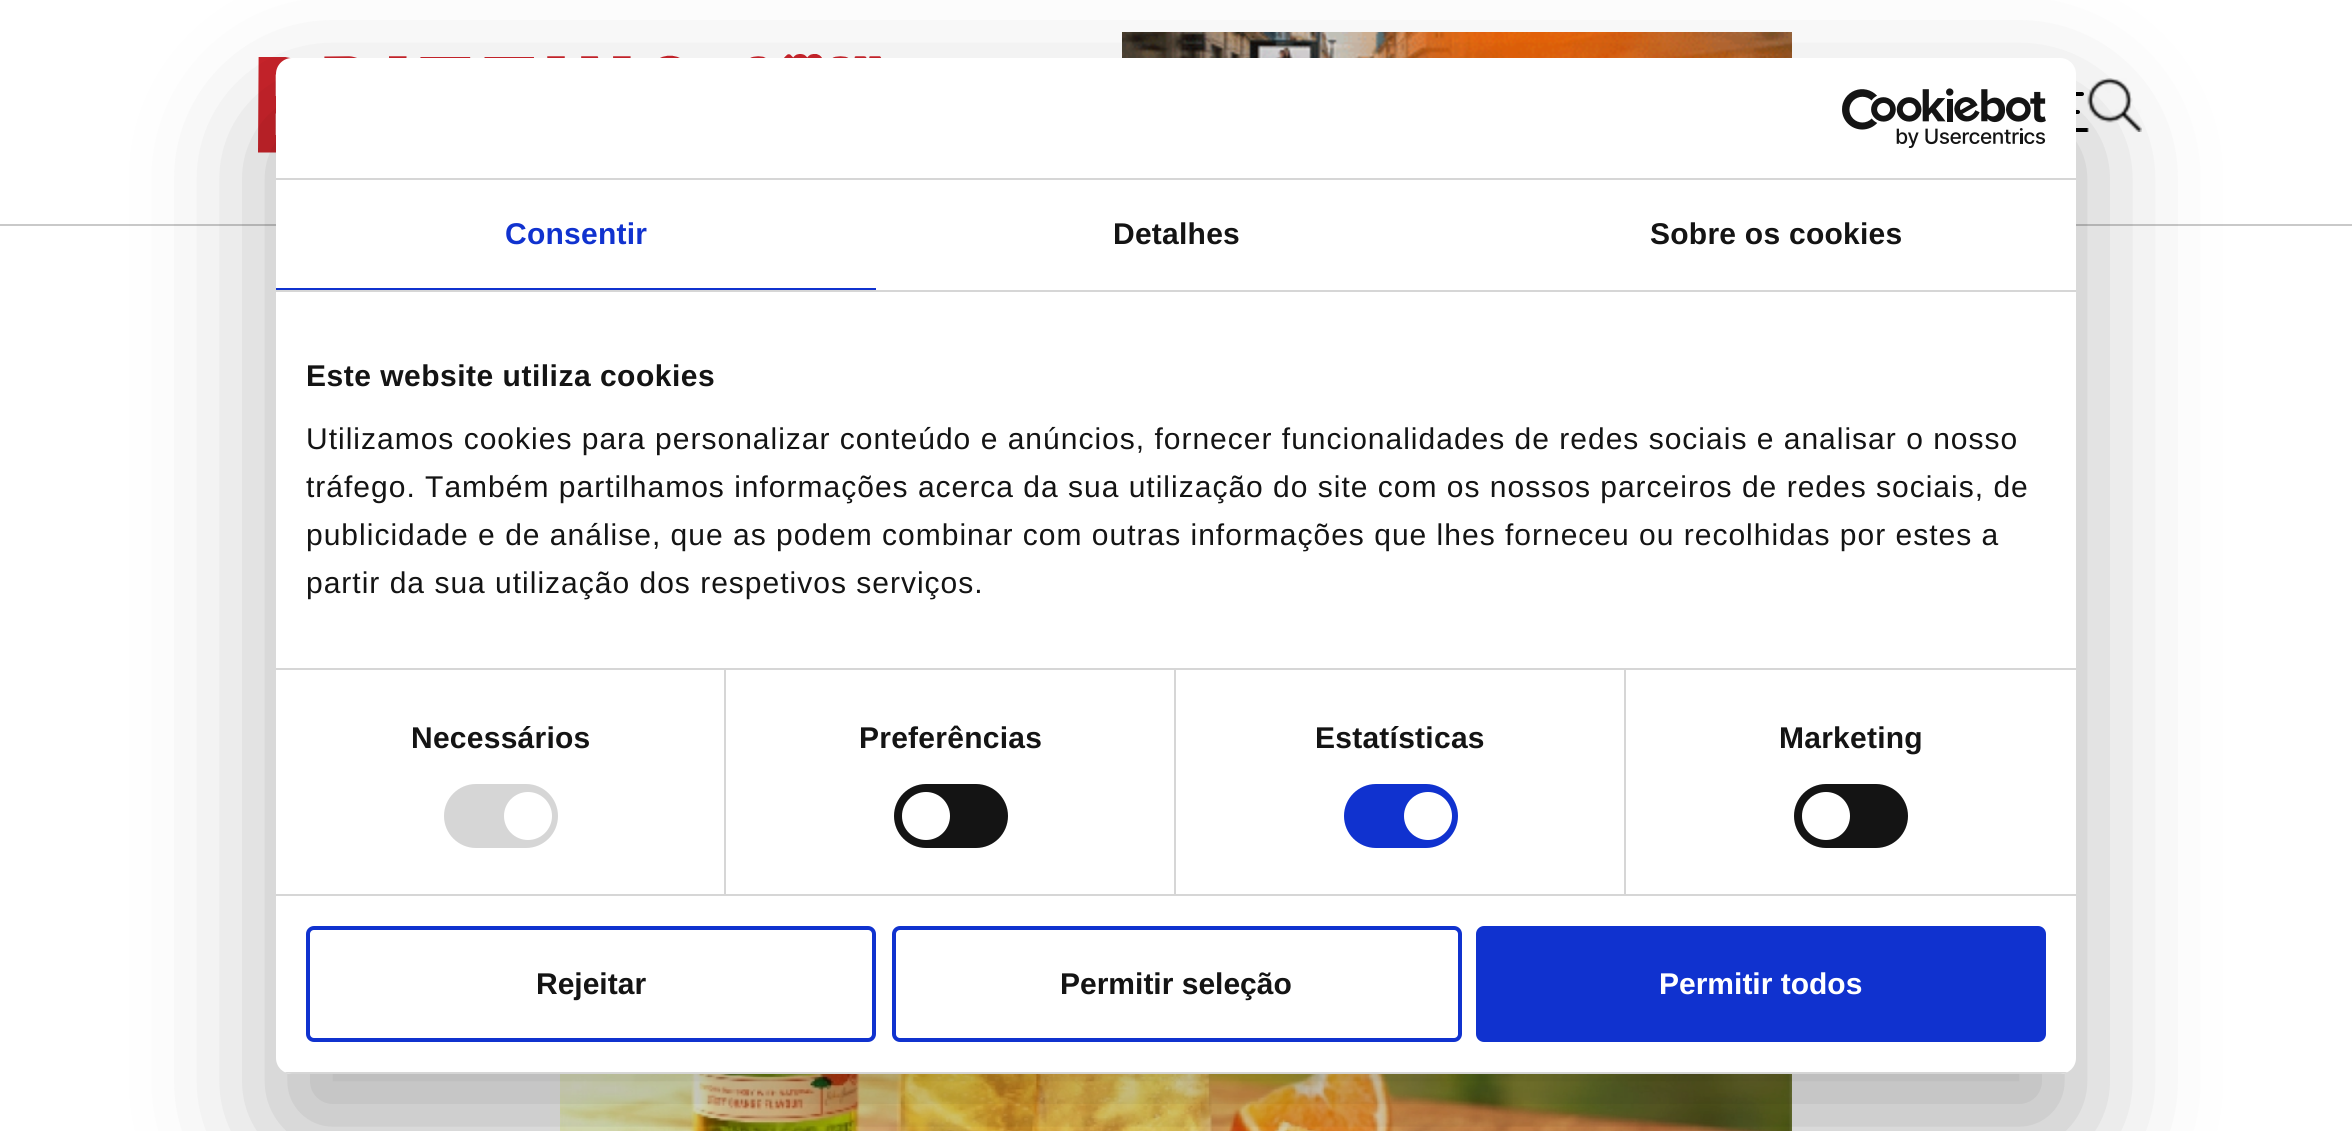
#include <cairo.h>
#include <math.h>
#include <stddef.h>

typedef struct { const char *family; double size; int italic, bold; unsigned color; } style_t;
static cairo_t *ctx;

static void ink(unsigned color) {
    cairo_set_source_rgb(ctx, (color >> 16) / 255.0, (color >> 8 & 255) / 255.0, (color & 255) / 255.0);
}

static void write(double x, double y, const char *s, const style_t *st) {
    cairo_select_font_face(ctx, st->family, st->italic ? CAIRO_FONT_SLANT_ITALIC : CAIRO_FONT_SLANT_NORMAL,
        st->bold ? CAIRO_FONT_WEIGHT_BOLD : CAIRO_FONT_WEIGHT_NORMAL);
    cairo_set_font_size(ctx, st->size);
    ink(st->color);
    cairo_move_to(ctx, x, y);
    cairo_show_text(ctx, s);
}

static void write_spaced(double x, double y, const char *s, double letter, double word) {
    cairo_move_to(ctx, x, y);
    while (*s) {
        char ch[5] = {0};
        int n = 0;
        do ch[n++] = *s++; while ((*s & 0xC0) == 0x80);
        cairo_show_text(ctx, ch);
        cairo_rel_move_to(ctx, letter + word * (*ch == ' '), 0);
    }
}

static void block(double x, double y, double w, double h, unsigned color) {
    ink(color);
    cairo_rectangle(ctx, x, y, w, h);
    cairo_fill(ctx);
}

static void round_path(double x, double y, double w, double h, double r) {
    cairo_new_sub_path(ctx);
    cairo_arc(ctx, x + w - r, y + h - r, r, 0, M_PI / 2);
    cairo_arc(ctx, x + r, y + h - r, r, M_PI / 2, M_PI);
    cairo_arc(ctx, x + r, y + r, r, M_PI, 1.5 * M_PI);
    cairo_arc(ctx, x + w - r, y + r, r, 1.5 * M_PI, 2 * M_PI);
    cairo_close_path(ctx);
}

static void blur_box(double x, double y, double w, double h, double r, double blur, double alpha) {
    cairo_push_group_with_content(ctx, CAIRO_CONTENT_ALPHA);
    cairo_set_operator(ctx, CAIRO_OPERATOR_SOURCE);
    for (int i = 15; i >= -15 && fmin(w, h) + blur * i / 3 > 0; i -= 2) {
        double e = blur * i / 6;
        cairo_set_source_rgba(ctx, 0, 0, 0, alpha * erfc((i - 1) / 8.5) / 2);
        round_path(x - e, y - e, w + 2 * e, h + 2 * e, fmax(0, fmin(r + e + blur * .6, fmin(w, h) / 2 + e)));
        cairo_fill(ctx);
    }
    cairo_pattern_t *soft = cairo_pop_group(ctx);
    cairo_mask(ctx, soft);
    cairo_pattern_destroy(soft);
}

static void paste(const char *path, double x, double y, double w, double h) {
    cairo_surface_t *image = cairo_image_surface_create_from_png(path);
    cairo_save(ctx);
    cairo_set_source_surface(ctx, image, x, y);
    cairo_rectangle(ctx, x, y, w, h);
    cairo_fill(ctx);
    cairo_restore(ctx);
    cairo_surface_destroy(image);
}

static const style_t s1 = {"Liberation Sans", 30, 0, 1, 0x141414};
static const style_t s2 = {"Liberation Sans", 30, 0, 1, 0xffffff};

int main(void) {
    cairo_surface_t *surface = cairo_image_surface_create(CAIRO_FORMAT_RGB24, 2352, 1131);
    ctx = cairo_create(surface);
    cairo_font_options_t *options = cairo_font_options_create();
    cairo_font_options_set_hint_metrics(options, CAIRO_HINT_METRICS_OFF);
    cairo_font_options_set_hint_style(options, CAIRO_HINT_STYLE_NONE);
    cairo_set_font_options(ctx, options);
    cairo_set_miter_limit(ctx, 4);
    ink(0xffffff);
    cairo_paint(ctx);
    block(0, 224, 2352, 2, 0xc9c9c9);
    paste("pic1.png", 1122, 32, 670, 26);
    paste("pic2.png", 258, 54, 624, 99);
    ink(0x000000);
    round_path(2038, 92, 46, 4, 2);
    cairo_fill(ctx);
    block(2076, 128, 13, 4, 0x000000);
    paste("pic3.png", 2087, 78, 55, 54);
    round_path(2038, 110, 42, 4, 2);
    cairo_fill(ctx);
    paste("pic4.png", 560, 1074, 1232, 57);
    ink(0x000000);
    blur_box(276, 122, 1800, 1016, 16, 68, 0.3);
    ink(0xffffff);
    round_path(276, 58, 1800, 1016, 16);
    cairo_fill(ctx);
    block(276, 178, 1800, 2, 0xd6d6d6);
    paste("pic5.png", 1842, 88, 204, 60);
    block(276, 290, 1800, 2, 0xd6d6d6);
    block(276, 288, 600, 2, 0x1032cf);
    cairo_select_font_face(ctx, "Liberation Sans", CAIRO_FONT_SLANT_NORMAL, CAIRO_FONT_WEIGHT_BOLD);
    cairo_set_font_size(ctx, 30);
    write_spaced(505, 244, "Consentir", 0.25, 0);
    ink(0x141414);
    write_spaced(1113, 244, "Detalhes", 0.25, 0);
    write_spaced(1650, 244, "Sobre os cookies", 0.25, 0);
    block(276, 668, 1800, 2, 0xd6d6d6);
    ink(0x141414);
    write_spaced(306, 386, "Este website utiliza cookies", 0.5, 0);
    cairo_select_font_face(ctx, "Liberation Sans", CAIRO_FONT_SLANT_NORMAL, CAIRO_FONT_WEIGHT_NORMAL);
    write_spaced(306, 449, "Utilizamos cookies para personalizar conteúdo e anúncios, fornecer funcionalidades de redes sociais e analisar o nosso", 1, 0);
    write_spaced(306, 497, "tráfego. Também partilhamos informações acerca da sua utilização do site com os nossos parceiros de redes sociais, de", 1, 0);
    write_spaced(306, 545, "publicidade e de análise, que as podem combinar com outras informações que lhes forneceu ou recolhidas por estes a", 1, 0);
    write_spaced(306, 593, "partir da sua utilização dos respetivos serviços.", 1, 0);
    block(276, 894, 1800, 2, 0xd6d6d6);
    block(724, 670, 2, 224, 0xd6d6d6);
    cairo_select_font_face(ctx, "Liberation Sans", CAIRO_FONT_SLANT_NORMAL, CAIRO_FONT_WEIGHT_BOLD);
    ink(0x141414);
    write_spaced(411, 748, "Necessários", 0.25, 0);
    ink(0xd6d6d6);
    round_path(444, 784, 114, 64, 32);
    cairo_fill(ctx);
    ink(0xffffff);
    cairo_arc(ctx, 528, 816, 24, 0, 2 * M_PI);
    cairo_fill(ctx);
    block(1174, 670, 2, 224, 0xd6d6d6);
    ink(0x141414);
    write_spaced(859, 748, "Preferências", 0.25, 0);
    round_path(894, 784, 114, 64, 32);
    cairo_fill(ctx);
    ink(0xffffff);
    cairo_arc(ctx, 926, 816, 24, 0, 2 * M_PI);
    cairo_fill(ctx);
    block(1624, 670, 2, 224, 0xd6d6d6);
    ink(0x141414);
    write_spaced(1315, 748, "Estatísticas", 0.25, 0);
    ink(0x1032cf);
    round_path(1344, 784, 114, 64, 32);
    cairo_fill(ctx);
    ink(0xffffff);
    cairo_arc(ctx, 1428, 816, 24, 0, 2 * M_PI);
    cairo_fill(ctx);
    ink(0x141414);
    write_spaced(1779, 748, "Marketing", 0.25, 0);
    round_path(1794, 784, 114, 64, 32);
    cairo_fill(ctx);
    ink(0xffffff);
    cairo_arc(ctx, 1826, 816, 24, 0, 2 * M_PI);
    cairo_fill(ctx);
    cairo_save(ctx);
    round_path(276, 58, 1800, 1016, 16);
    cairo_clip(ctx);
    block(276, 1072, 1800, 2, 0xd6d6d6);
    cairo_restore(ctx);
    round_path(308, 928, 566, 112, 6);
    ink(0x1032cf);
    cairo_set_line_width(ctx, 4);
    cairo_stroke(ctx);
    write(536, 994, "Rejeitar", &s1);
    round_path(894, 928, 566, 112, 6);
    ink(0x1032cf);
    cairo_stroke(ctx);
    write(1060, 994, "Permitir seleção", &s1);
    ink(0x1032cf);
    round_path(1478, 928, 566, 112, 6);
    cairo_fill_preserve(ctx);
    cairo_stroke(ctx);
    write(1659, 994, "Permitir todos", &s2);
    cairo_surface_write_to_png(surface, "screenshot.png");
    cairo_font_options_destroy(options);
    cairo_destroy(ctx);
    cairo_surface_destroy(surface);
    return 0;
}
